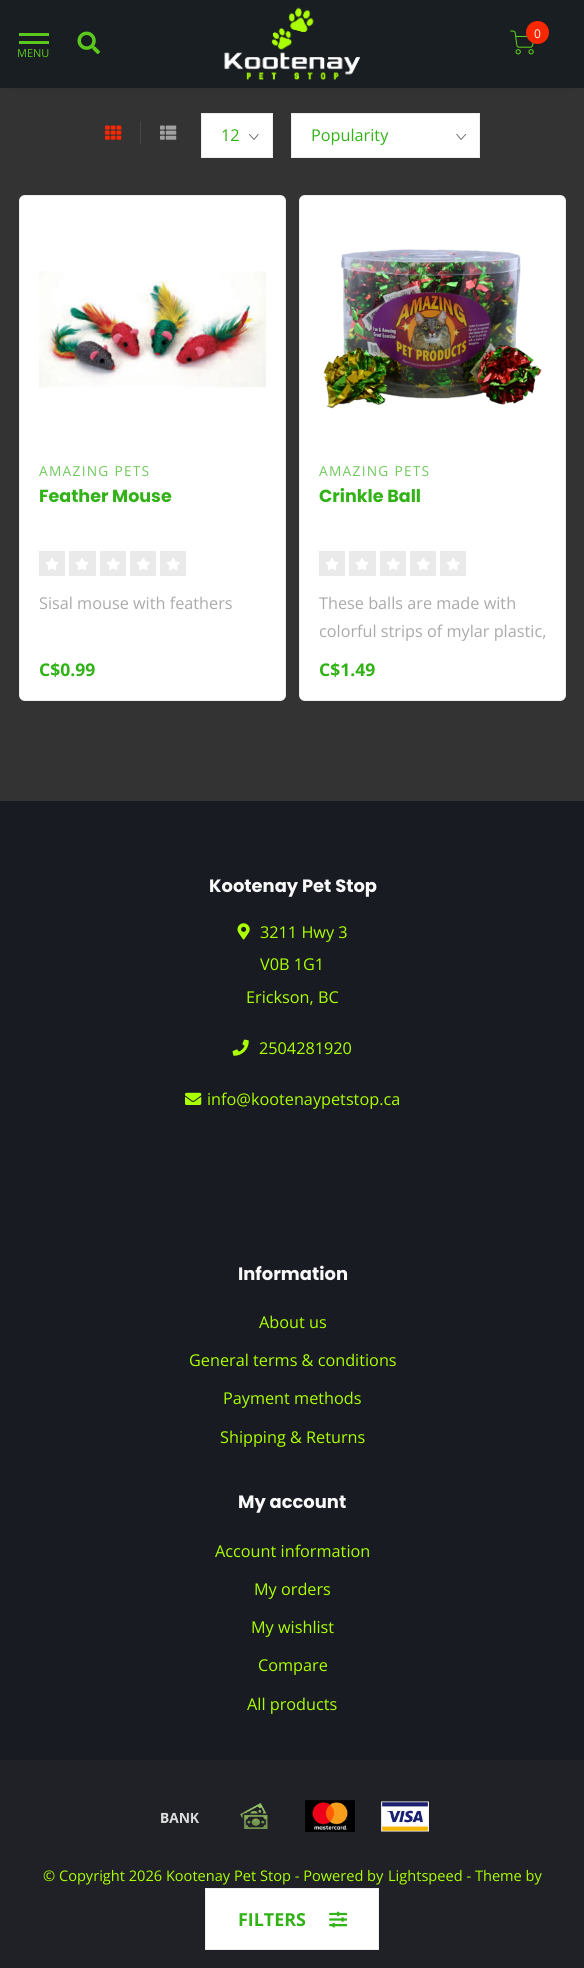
#include <cairo.h>
#include <math.h>
#include <stddef.h>

typedef struct { const char *family; double size; int italic, bold; unsigned color; } style_t;
static cairo_t *ctx;

static void ink(unsigned color) {
    cairo_set_source_rgb(ctx, (color >> 16) / 255.0, (color >> 8 & 255) / 255.0, (color & 255) / 255.0);
}

static void write(double x, double y, const char *s, const style_t *st) {
    cairo_select_font_face(ctx, st->family, st->italic ? CAIRO_FONT_SLANT_ITALIC : CAIRO_FONT_SLANT_NORMAL,
        st->bold ? CAIRO_FONT_WEIGHT_BOLD : CAIRO_FONT_WEIGHT_NORMAL);
    cairo_set_font_size(ctx, st->size);
    ink(st->color);
    cairo_move_to(ctx, x, y);
    cairo_show_text(ctx, s);
}

static void write_spaced(double x, double y, const char *s, double letter, double word) {
    cairo_move_to(ctx, x, y);
    while (*s) {
        char ch[5] = {0};
        int n = 0;
        do ch[n++] = *s++; while ((*s & 0xC0) == 0x80);
        cairo_show_text(ctx, ch);
        cairo_rel_move_to(ctx, letter + word * (*ch == ' '), 0);
    }
}

static void block(double x, double y, double w, double h, unsigned color) {
    ink(color);
    cairo_rectangle(ctx, x, y, w, h);
    cairo_fill(ctx);
}

static void round_path(double x, double y, double w, double h, double r) {
    cairo_new_sub_path(ctx);
    cairo_arc(ctx, x + w - r, y + h - r, r, 0, M_PI / 2);
    cairo_arc(ctx, x + r, y + h - r, r, M_PI / 2, M_PI);
    cairo_arc(ctx, x + r, y + r, r, M_PI, 1.5 * M_PI);
    cairo_arc(ctx, x + w - r, y + r, r, 1.5 * M_PI, 2 * M_PI);
    cairo_close_path(ctx);
}

static void blur_box(double x, double y, double w, double h, double r, double blur, double alpha) {
    cairo_push_group_with_content(ctx, CAIRO_CONTENT_ALPHA);
    cairo_set_operator(ctx, CAIRO_OPERATOR_SOURCE);
    for (int i = 15; i >= -15 && fmin(w, h) + blur * i / 3 > 0; i -= 2) {
        double e = blur * i / 6;
        cairo_set_source_rgba(ctx, 0, 0, 0, alpha * erfc((i - 1) / 8.5) / 2);
        round_path(x - e, y - e, w + 2 * e, h + 2 * e, fmax(0, fmin(r + e + blur * .6, fmin(w, h) / 2 + e)));
        cairo_fill(ctx);
    }
    cairo_pattern_t *soft = cairo_pop_group(ctx);
    cairo_mask(ctx, soft);
    cairo_pattern_destroy(soft);
}

static void paste(const char *path, double x, double y, double w, double h) {
    cairo_surface_t *image = cairo_image_surface_create_from_png(path);
    cairo_save(ctx);
    cairo_set_source_surface(ctx, image, x, y);
    cairo_rectangle(ctx, x, y, w, h);
    cairo_fill(ctx);
    cairo_restore(ctx);
    cairo_surface_destroy(image);
}

static const style_t s1 = {"Open Sans", 12, 0, 0, 0xffffff};
static const style_t s2 = {"Open Sans", 11, 0, 0, 0x5bc81d};
static const style_t s3 = {"Open Sans", 16.25, 0, 0, 0x31b216};
static const style_t s4 = {"Poppins", 17.5, 0, 1, 0x31b216};
static const style_t s5 = {"Open Sans", 16.25, 0, 0, 0xaaaaaa};
static const style_t s6 = {"Open Sans", 17.5, 0, 1, 0x31b216};
static const style_t s7 = {"Poppins", 17.9, 0, 1, 0xf9f9f9};
static const style_t s8 = {"Open Sans", 16.25, 0, 0, 0xaaff00};
static const style_t s9 = {"Open Sans", 14.6, 0, 0, 0xaaff00};
static const style_t s10 = {"Open Sans", 17.9, 0, 1, 0x31b216};

int main(void) {
    cairo_surface_t *surface = cairo_image_surface_create(CAIRO_FORMAT_RGB24, 584, 1968);
    ctx = cairo_create(surface);
    cairo_font_options_t *options = cairo_font_options_create();
    cairo_font_options_set_hint_metrics(options, CAIRO_HINT_METRICS_OFF);
    cairo_font_options_set_hint_style(options, CAIRO_HINT_STYLE_NONE);
    cairo_set_font_options(ctx, options);
    cairo_set_miter_limit(ctx, 4);
    ink(0x333333);
    cairo_paint(ctx);
    ink(0x000000);
    blur_box(16, 16, 553, 55, 0, 10, 0.8);
    block(0, 0, 584, 88, 0x181e21);
    paste("pic1.png", 224, 7, 137, 74);
    paste("pic2.png", 510, 30, 24, 25);
    ink(0xf92702);
    cairo_arc(ctx, 537.5, 32.5, 11.5, 0, 2 * M_PI);
    cairo_fill(ctx);
    write(534, 38, "0", &s1);
    block(19, 33, 30, 3, 0x5bc81d);
    block(19, 41, 30, 3, 0x5bc81d);
    write(17, 57, "MENU", &s2);
    paste("pic3.png", 77, 31, 23, 23);
    block(140, 121, 1, 23, 0x454545);
    paste("pic4.png", 105, 125, 17, 15);
    paste("pic5.png", 160, 125, 17, 15);
    block(202, 114, 70, 43, 0xffffff);
    cairo_save(ctx);
    cairo_rectangle(ctx, 249, 134, 10, 6);
    cairo_clip(ctx);
    cairo_new_path(ctx);
    cairo_move_to(ctx, 258.5, 134);
    cairo_line_to(ctx, 254, 139.5);
    cairo_line_to(ctx, 249, 134);
    ink(0x666666);
    cairo_set_line_width(ctx, 0.9);
    cairo_stroke(ctx);
    cairo_restore(ctx);
    cairo_rectangle(ctx, 201.5, 113.5, 71, 44);
    ink(0xeeeeee);
    cairo_set_line_width(ctx, 1);
    cairo_stroke(ctx);
    write(221, 141, "12", &s3);
    block(292, 114, 187, 43, 0xffffff);
    cairo_save(ctx);
    cairo_rectangle(ctx, 456, 134, 10, 6);
    cairo_clip(ctx);
    cairo_new_path(ctx);
    cairo_move_to(ctx, 466, 134);
    cairo_line_to(ctx, 461, 139.5);
    cairo_line_to(ctx, 456.5, 134);
    ink(0x666666);
    cairo_set_line_width(ctx, 0.9);
    cairo_stroke(ctx);
    cairo_restore(ctx);
    cairo_rectangle(ctx, 291.5, 113.5, 188, 44);
    ink(0xeeeeee);
    cairo_stroke(ctx);
    write(311, 141, "Popularity", &s3);
    ink(0xffffff);
    round_path(19, 195, 267, 506, 6);
    cairo_fill(ctx);
    round_path(19.5, 195.5, 266, 505, 5.5);
    cairo_set_source_rgba(ctx, 0.608, 0.608, 0.608, 0.17);
    cairo_stroke(ctx);
    paste("pic6.png", 39, 271, 227, 117);
    cairo_set_font_size(ctx, 13.75);
    ink(0x6fc95c);
    write_spaced(39, 476, "AMAZING PETS", 1.25, 0);
    write(39, 502, "Feather Mouse", &s4);
    block(39, 551, 26, 25, 0xeaeaea);
    paste("pic7.png", 45, 558, 14, 13);
    block(69, 551, 27, 25, 0xeaeaea);
    paste("pic7.png", 75, 558, 14, 13);
    block(100, 551, 26, 25, 0xeaeaea);
    paste("pic8.png", 107, 558, 13, 13);
    block(130, 551, 26, 25, 0xeaeaea);
    paste("pic8.png", 137, 558, 13, 13);
    block(160, 551, 26, 25, 0xeaeaea);
    paste("pic8.png", 167, 558, 13, 13);
    write(39, 609, "Sisal mouse with feathers", &s5);
    write(39, 676, "C$0.99", &s6);
    ink(0xffffff);
    round_path(299, 195, 267, 506, 6);
    cairo_fill(ctx);
    round_path(299.5, 195.5, 266, 505, 5.5);
    cairo_set_source_rgba(ctx, 0.608, 0.608, 0.608, 0.17);
    cairo_stroke(ctx);
    paste("pic9.png", 323, 249, 219, 160);
    cairo_select_font_face(ctx, "Open Sans", CAIRO_FONT_SLANT_NORMAL, CAIRO_FONT_WEIGHT_NORMAL);
    cairo_set_font_size(ctx, 13.75);
    ink(0x6fc95c);
    write_spaced(319, 476, "AMAZING PETS", 1.25, 0);
    write(319, 502, "Crinkle Ball", &s4);
    block(319, 551, 26, 25, 0xeaeaea);
    paste("pic7.png", 325, 558, 14, 13);
    block(349, 551, 27, 25, 0xeaeaea);
    paste("pic7.png", 355, 558, 14, 13);
    block(380, 551, 26, 25, 0xeaeaea);
    paste("pic8.png", 387, 558, 13, 13);
    block(410, 551, 26, 25, 0xeaeaea);
    paste("pic8.png", 417, 558, 13, 13);
    block(440, 551, 26, 25, 0xeaeaea);
    paste("pic8.png", 447, 558, 13, 13);
    write(319, 609, "These balls are made with", &s5);
    write(319, 637, "colorful strips of mylar plastic,", &s5);
    write(319, 676, "C$1.49", &s6);
    block(0, 801, 584, 959, 0x181b21);
    write(209, 892, "Kootenay Pet Stop", &s7);
    paste("pic10.png", 237, 923, 13, 17);
    write(260, 938, "3211 Hwy 3", &s8);
    write(260, 970, "V0B 1G1", &s8);
    write(246, 1003, "Erickson, BC", &s8);
    paste("pic11.png", 232, 1039, 17, 17);
    write(259, 1054, "2504281920", &s8);
    paste("pic12.png", 185, 1092, 17, 13);
    write(207, 1105, "info@kootenaypetstop.ca", &s8);
    write(238, 1280, "Information", &s7);
    write(259, 1328, "About us", &s8);
    write(189, 1366, "General terms & conditions", &s8);
    write(223, 1404, "Payment methods", &s8);
    write(220, 1443, "Shipping & Returns", &s8);
    write(238, 1508, "My account", &s7);
    write(215, 1557, "Account information", &s8);
    write(254, 1595, "My orders", &s8);
    write(251, 1633, "My wishlist", &s8);
    write(258, 1671, "Compare", &s8);
    write(247, 1710, "All products", &s8);
    block(0, 1760, 584, 208, 0x1f2127);
    paste("pic13.png", 161, 1812, 39, 11);
    paste("pic14.png", 240, 1803, 28, 26);
    paste("pic15.png", 305, 1800, 50, 32);
    paste("pic16.png", 381, 1801, 48, 31);
    write(43, 1881, "© Copyright 2026 Kootenay Pet Stop - Powered by", &s9);
    write(388, 1881, "Lightspeed - Theme by", &s9);
    ink(0xffffff);
    cairo_rectangle(ctx, 205.5, 1888.5, 173, 61);
    cairo_fill_preserve(ctx);
    ink(0xeeeeee);
    cairo_stroke(ctx);
    write(238, 1926, "FILTERS", &s10);
    paste("pic17.png", 329, 1911, 19, 17);
    cairo_surface_write_to_png(surface, "screenshot.png");
    cairo_font_options_destroy(options);
    cairo_destroy(ctx);
    cairo_surface_destroy(surface);
    return 0;
}
